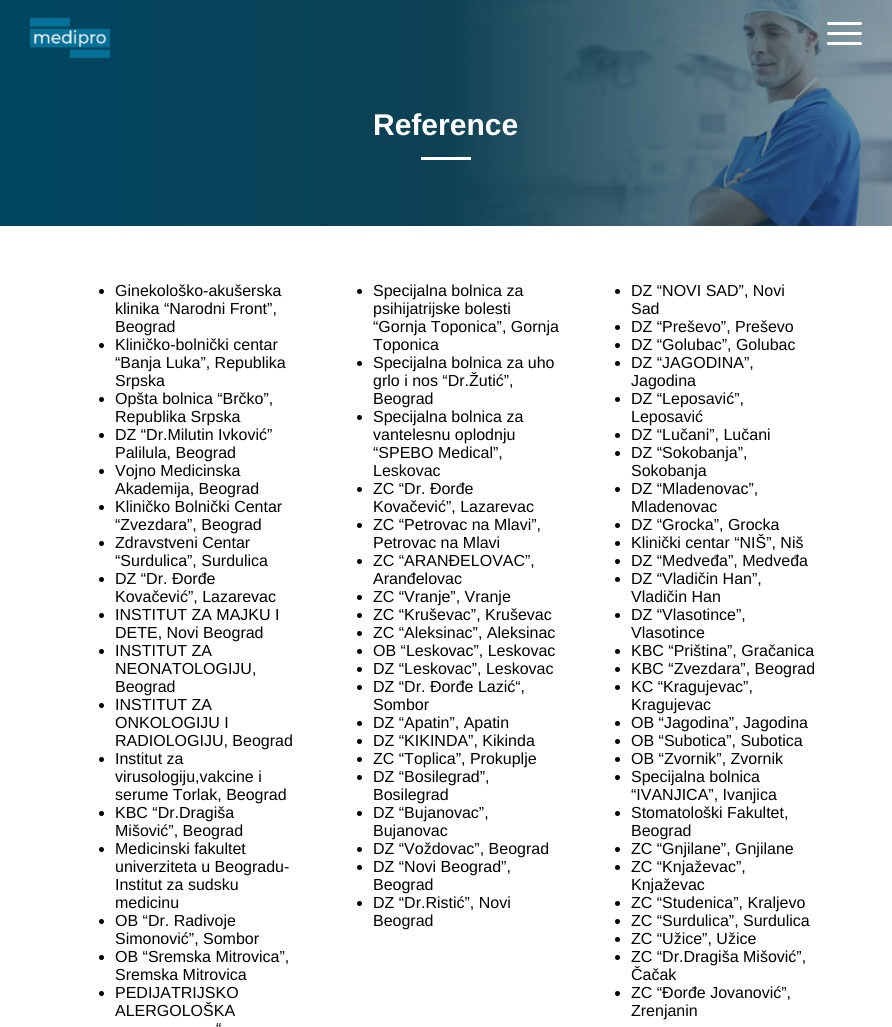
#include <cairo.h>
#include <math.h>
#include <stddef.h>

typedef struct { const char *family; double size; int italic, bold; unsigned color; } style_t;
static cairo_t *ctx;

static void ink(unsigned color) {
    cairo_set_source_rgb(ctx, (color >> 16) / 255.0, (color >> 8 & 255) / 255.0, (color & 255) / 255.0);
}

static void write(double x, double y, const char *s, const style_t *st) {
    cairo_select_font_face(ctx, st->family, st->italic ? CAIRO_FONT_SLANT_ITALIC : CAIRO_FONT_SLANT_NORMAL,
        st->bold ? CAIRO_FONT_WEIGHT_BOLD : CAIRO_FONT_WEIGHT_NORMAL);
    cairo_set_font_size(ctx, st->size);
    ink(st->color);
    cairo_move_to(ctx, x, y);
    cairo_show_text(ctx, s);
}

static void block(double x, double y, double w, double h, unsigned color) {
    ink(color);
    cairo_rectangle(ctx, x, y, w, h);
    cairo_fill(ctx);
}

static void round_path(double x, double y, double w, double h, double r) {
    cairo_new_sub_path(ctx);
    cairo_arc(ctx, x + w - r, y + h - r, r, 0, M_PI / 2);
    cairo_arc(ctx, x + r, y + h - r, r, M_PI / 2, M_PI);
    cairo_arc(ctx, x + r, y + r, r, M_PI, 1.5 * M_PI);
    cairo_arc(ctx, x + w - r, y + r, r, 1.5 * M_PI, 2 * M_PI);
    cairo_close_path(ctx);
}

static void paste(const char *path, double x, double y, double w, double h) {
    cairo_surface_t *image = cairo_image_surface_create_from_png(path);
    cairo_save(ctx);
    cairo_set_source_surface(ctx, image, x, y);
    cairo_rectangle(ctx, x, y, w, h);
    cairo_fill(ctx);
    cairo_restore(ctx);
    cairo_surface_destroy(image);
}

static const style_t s1 = {"Liberation Sans", 30, 0, 1, 0xffffff};
static const style_t s2 = {"Liberation Sans", 16, 0, 0, 0x000000};

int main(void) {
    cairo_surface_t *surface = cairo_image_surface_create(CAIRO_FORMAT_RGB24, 892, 1027);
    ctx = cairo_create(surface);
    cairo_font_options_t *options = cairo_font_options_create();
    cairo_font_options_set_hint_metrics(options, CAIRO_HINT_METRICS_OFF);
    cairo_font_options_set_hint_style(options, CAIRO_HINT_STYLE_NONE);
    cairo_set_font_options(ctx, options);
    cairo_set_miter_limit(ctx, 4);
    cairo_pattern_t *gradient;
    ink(0xffffff);
    cairo_paint(ctx);
    paste("pic2.png", 451, 0, 441, 226);
    gradient = cairo_pattern_create_linear(892, 113, 0, 113);
    cairo_pattern_add_color_stop_rgba(gradient, 0, 0.098, 0.235, 0.286, 0);
    cairo_pattern_add_color_stop_rgba(gradient, 0, 0.098, 0.235, 0.286, 0.46);
    cairo_pattern_add_color_stop_rgba(gradient, 0.5, 0.051, 0.255, 0.329, 1);
    cairo_pattern_add_color_stop_rgba(gradient, 1, 0, 0.275, 0.38, 1);
    cairo_set_source(ctx, gradient);
    cairo_pattern_destroy(gradient);
    cairo_rectangle(ctx, 0, 0, 892, 226);
    cairo_fill(ctx);
    paste("pic1.png", 30, 18, 80, 40);
    ink(0xffffff);
    round_path(827, 22, 35, 3, 1.5);
    cairo_fill(ctx);
    round_path(827, 32, 35, 3, 1.5);
    cairo_fill(ctx);
    round_path(827, 42, 35, 3, 1.5);
    cairo_fill(ctx);
    write(373, 135, "Reference", &s1);
    block(421, 157, 50, 3, 0xffffff);
    ink(0x000000);
    cairo_new_path(ctx);
    cairo_arc(ctx, 101.5, 291.5, 2.5, 0, 2 * M_PI);
    cairo_fill(ctx);
    write(115, 296, "Ginekološko-akušerska", &s2);
    write(115, 314, "klinika “Narodni Front”,", &s2);
    write(115, 332, "Beograd", &s2);
    cairo_new_path(ctx);
    cairo_arc(ctx, 101.5, 345.5, 2.5, 0, 2 * M_PI);
    cairo_fill(ctx);
    write(115, 350, "Kliničko-bolnički centar", &s2);
    write(115, 368, "“Banja Luka”, Republika", &s2);
    write(115, 386, "Srpska", &s2);
    cairo_new_path(ctx);
    cairo_arc(ctx, 101.5, 399.5, 2.5, 0, 2 * M_PI);
    cairo_fill(ctx);
    write(115, 404, "Opšta bolnica “Brčko”,", &s2);
    write(115, 422, "Republika Srpska", &s2);
    cairo_new_path(ctx);
    cairo_arc(ctx, 101.5, 435.5, 2.5, 0, 2 * M_PI);
    cairo_fill(ctx);
    write(115, 440, "DZ “Dr.Milutin Ivković”", &s2);
    write(115, 458, "Palilula, Beograd", &s2);
    cairo_new_path(ctx);
    cairo_arc(ctx, 101.5, 471.5, 2.5, 0, 2 * M_PI);
    cairo_fill(ctx);
    write(115, 476, "Vojno Medicinska", &s2);
    write(115, 494, "Akademija, Beograd", &s2);
    cairo_new_path(ctx);
    cairo_arc(ctx, 101.5, 507.5, 2.5, 0, 2 * M_PI);
    cairo_fill(ctx);
    write(115, 512, "Kliničko Bolnički Centar", &s2);
    write(115, 530, "“Zvezdara”, Beograd", &s2);
    cairo_new_path(ctx);
    cairo_arc(ctx, 101.5, 543.5, 2.5, 0, 2 * M_PI);
    cairo_fill(ctx);
    write(115, 548, "Zdravstveni Centar", &s2);
    write(115, 566, "“Surdulica”, Surdulica", &s2);
    cairo_new_path(ctx);
    cairo_arc(ctx, 101.5, 579.5, 2.5, 0, 2 * M_PI);
    cairo_fill(ctx);
    write(115, 584, "DZ “Dr. Đorđe", &s2);
    write(115, 602, "Kovačević”, Lazarevac", &s2);
    cairo_new_path(ctx);
    cairo_arc(ctx, 101.5, 615.5, 2.5, 0, 2 * M_PI);
    cairo_fill(ctx);
    write(115, 620, "INSTITUT ZA MAJKU I", &s2);
    write(115, 638, "DETE, Novi Beograd", &s2);
    cairo_new_path(ctx);
    cairo_arc(ctx, 101.5, 651.5, 2.5, 0, 2 * M_PI);
    cairo_fill(ctx);
    write(115, 656, "INSTITUT ZA", &s2);
    write(115, 674, "NEONATOLOGIJU,", &s2);
    write(115, 692, "Beograd", &s2);
    cairo_new_path(ctx);
    cairo_arc(ctx, 101.5, 705.5, 2.5, 0, 2 * M_PI);
    cairo_fill(ctx);
    write(115, 710, "INSTITUT ZA", &s2);
    write(115, 728, "ONKOLOGIJU I", &s2);
    write(115, 746, "RADIOLOGIJU, Beograd", &s2);
    cairo_new_path(ctx);
    cairo_arc(ctx, 101.5, 759.5, 2.5, 0, 2 * M_PI);
    cairo_fill(ctx);
    write(115, 764, "Institut za", &s2);
    write(115, 782, "virusologiju,vakcine i", &s2);
    write(115, 800, "serume Torlak, Beograd", &s2);
    cairo_new_path(ctx);
    cairo_arc(ctx, 101.5, 813.5, 2.5, 0, 2 * M_PI);
    cairo_fill(ctx);
    write(115, 818, "KBC “Dr.Dragiša", &s2);
    write(115, 836, "Mišović”, Beograd", &s2);
    cairo_new_path(ctx);
    cairo_arc(ctx, 101.5, 849.5, 2.5, 0, 2 * M_PI);
    cairo_fill(ctx);
    write(115, 854, "Medicinski fakultet", &s2);
    write(115, 872, "univerziteta u Beogradu-", &s2);
    write(115, 890, "Institut za sudsku", &s2);
    write(115, 908, "medicinu", &s2);
    cairo_new_path(ctx);
    cairo_arc(ctx, 101.5, 921.5, 2.5, 0, 2 * M_PI);
    cairo_fill(ctx);
    write(115, 926, "OB “Dr. Radivoje", &s2);
    write(115, 944, "Simonović”, Sombor", &s2);
    cairo_new_path(ctx);
    cairo_arc(ctx, 101.5, 957.5, 2.5, 0, 2 * M_PI);
    cairo_fill(ctx);
    write(115, 962, "OB “Sremska Mitrovica”,", &s2);
    write(115, 980, "Sremska Mitrovica", &s2);
    cairo_new_path(ctx);
    cairo_arc(ctx, 101.5, 993.5, 2.5, 0, 2 * M_PI);
    cairo_fill(ctx);
    write(115, 998, "PEDIJATRIJSKO", &s2);
    write(115, 1016, "ALERGOLOŠKA", &s2);
    write(216, 1034, "“", &s2);
    cairo_new_path(ctx);
    cairo_arc(ctx, 359.5, 291.5, 2.5, 0, 2 * M_PI);
    cairo_fill(ctx);
    write(373, 296, "Specijalna bolnica za", &s2);
    write(373, 314, "psihijatrijske bolesti", &s2);
    write(373, 332, "“Gornja Toponica”, Gornja", &s2);
    write(373, 350, "Toponica", &s2);
    cairo_new_path(ctx);
    cairo_arc(ctx, 359.5, 363.5, 2.5, 0, 2 * M_PI);
    cairo_fill(ctx);
    write(373, 368, "Specijalna bolnica za uho", &s2);
    write(373, 386, "grlo i nos “Dr.Žutić”,", &s2);
    write(373, 404, "Beograd", &s2);
    cairo_new_path(ctx);
    cairo_arc(ctx, 359.5, 417.5, 2.5, 0, 2 * M_PI);
    cairo_fill(ctx);
    write(373, 422, "Specijalna bolnica za", &s2);
    write(373, 440, "vantelesnu oplodnju", &s2);
    write(373, 458, "“SPEBO Medical”,", &s2);
    write(373, 476, "Leskovac", &s2);
    cairo_new_path(ctx);
    cairo_arc(ctx, 359.5, 489.5, 2.5, 0, 2 * M_PI);
    cairo_fill(ctx);
    write(373, 494, "ZC “Dr. Đorđe", &s2);
    write(373, 512, "Kovačević”, Lazarevac", &s2);
    cairo_new_path(ctx);
    cairo_arc(ctx, 359.5, 525.5, 2.5, 0, 2 * M_PI);
    cairo_fill(ctx);
    write(373, 530, "ZC “Petrovac na Mlavi”,", &s2);
    write(373, 548, "Petrovac na Mlavi", &s2);
    cairo_new_path(ctx);
    cairo_arc(ctx, 359.5, 561.5, 2.5, 0, 2 * M_PI);
    cairo_fill(ctx);
    write(373, 566, "ZC “ARANĐELOVAC”,", &s2);
    write(373, 584, "Aranđelovac", &s2);
    cairo_new_path(ctx);
    cairo_arc(ctx, 359.5, 597.5, 2.5, 0, 2 * M_PI);
    cairo_fill(ctx);
    write(373, 602, "ZC “Vranje”, Vranje", &s2);
    cairo_new_path(ctx);
    cairo_arc(ctx, 359.5, 615.5, 2.5, 0, 2 * M_PI);
    cairo_fill(ctx);
    write(373, 620, "ZC “Kruševac”, Kruševac", &s2);
    cairo_new_path(ctx);
    cairo_arc(ctx, 359.5, 633.5, 2.5, 0, 2 * M_PI);
    cairo_fill(ctx);
    write(373, 638, "ZC “Aleksinac”, Aleksinac", &s2);
    cairo_new_path(ctx);
    cairo_arc(ctx, 359.5, 651.5, 2.5, 0, 2 * M_PI);
    cairo_fill(ctx);
    write(373, 656, "OB “Leskovac”, Leskovac", &s2);
    cairo_new_path(ctx);
    cairo_arc(ctx, 359.5, 669.5, 2.5, 0, 2 * M_PI);
    cairo_fill(ctx);
    write(373, 674, "DZ “Leskovac”, Leskovac", &s2);
    cairo_new_path(ctx);
    cairo_arc(ctx, 359.5, 687.5, 2.5, 0, 2 * M_PI);
    cairo_fill(ctx);
    write(373, 692, "DZ “Dr. Đorđe Lazić“,", &s2);
    write(373, 710, "Sombor", &s2);
    cairo_new_path(ctx);
    cairo_arc(ctx, 359.5, 723.5, 2.5, 0, 2 * M_PI);
    cairo_fill(ctx);
    write(373, 728, "DZ “Apatin”, Apatin", &s2);
    cairo_new_path(ctx);
    cairo_arc(ctx, 359.5, 741.5, 2.5, 0, 2 * M_PI);
    cairo_fill(ctx);
    write(373, 746, "DZ “KIKINDA”, Kikinda", &s2);
    cairo_new_path(ctx);
    cairo_arc(ctx, 359.5, 759.5, 2.5, 0, 2 * M_PI);
    cairo_fill(ctx);
    write(373, 764, "ZC “Toplica”, Prokuplje", &s2);
    cairo_new_path(ctx);
    cairo_arc(ctx, 359.5, 777.5, 2.5, 0, 2 * M_PI);
    cairo_fill(ctx);
    write(373, 782, "DZ “Bosilegrad”,", &s2);
    write(373, 800, "Bosilegrad", &s2);
    cairo_new_path(ctx);
    cairo_arc(ctx, 359.5, 813.5, 2.5, 0, 2 * M_PI);
    cairo_fill(ctx);
    write(373, 818, "DZ “Bujanovac”,", &s2);
    write(373, 836, "Bujanovac", &s2);
    cairo_new_path(ctx);
    cairo_arc(ctx, 359.5, 849.5, 2.5, 0, 2 * M_PI);
    cairo_fill(ctx);
    write(373, 854, "DZ “Voždovac”, Beograd", &s2);
    cairo_new_path(ctx);
    cairo_arc(ctx, 359.5, 867.5, 2.5, 0, 2 * M_PI);
    cairo_fill(ctx);
    write(373, 872, "DZ “Novi Beograd”,", &s2);
    write(373, 890, "Beograd", &s2);
    cairo_new_path(ctx);
    cairo_arc(ctx, 359.5, 903.5, 2.5, 0, 2 * M_PI);
    cairo_fill(ctx);
    write(373, 908, "DZ “Dr.Ristić”, Novi", &s2);
    write(373, 926, "Beograd", &s2);
    cairo_new_path(ctx);
    cairo_arc(ctx, 617.5, 291.5, 2.5, 0, 2 * M_PI);
    cairo_fill(ctx);
    write(631, 296, "DZ “NOVI SAD”, Novi", &s2);
    write(631, 314, "Sad", &s2);
    cairo_new_path(ctx);
    cairo_arc(ctx, 617.5, 327.5, 2.5, 0, 2 * M_PI);
    cairo_fill(ctx);
    write(631, 332, "DZ “Preševo”, Preševo", &s2);
    cairo_new_path(ctx);
    cairo_arc(ctx, 617.5, 345.5, 2.5, 0, 2 * M_PI);
    cairo_fill(ctx);
    write(631, 350, "DZ “Golubac”, Golubac", &s2);
    cairo_new_path(ctx);
    cairo_arc(ctx, 617.5, 363.5, 2.5, 0, 2 * M_PI);
    cairo_fill(ctx);
    write(631, 368, "DZ “JAGODINA”,", &s2);
    write(631, 386, "Jagodina", &s2);
    cairo_new_path(ctx);
    cairo_arc(ctx, 617.5, 399.5, 2.5, 0, 2 * M_PI);
    cairo_fill(ctx);
    write(631, 404, "DZ “Leposavić”,", &s2);
    write(631, 422, "Leposavić", &s2);
    cairo_new_path(ctx);
    cairo_arc(ctx, 617.5, 435.5, 2.5, 0, 2 * M_PI);
    cairo_fill(ctx);
    write(631, 440, "DZ “Lučani”, Lučani", &s2);
    cairo_new_path(ctx);
    cairo_arc(ctx, 617.5, 453.5, 2.5, 0, 2 * M_PI);
    cairo_fill(ctx);
    write(631, 458, "DZ “Sokobanja”,", &s2);
    write(631, 476, "Sokobanja", &s2);
    cairo_new_path(ctx);
    cairo_arc(ctx, 617.5, 489.5, 2.5, 0, 2 * M_PI);
    cairo_fill(ctx);
    write(631, 494, "DZ “Mladenovac”,", &s2);
    write(631, 512, "Mladenovac", &s2);
    cairo_new_path(ctx);
    cairo_arc(ctx, 617.5, 525.5, 2.5, 0, 2 * M_PI);
    cairo_fill(ctx);
    write(631, 530, "DZ “Grocka”, Grocka", &s2);
    cairo_new_path(ctx);
    cairo_arc(ctx, 617.5, 543.5, 2.5, 0, 2 * M_PI);
    cairo_fill(ctx);
    write(631, 548, "Klinički centar “NIŠ”, Niš", &s2);
    cairo_new_path(ctx);
    cairo_arc(ctx, 617.5, 561.5, 2.5, 0, 2 * M_PI);
    cairo_fill(ctx);
    write(631, 566, "DZ “Medveđa”, Medveđa", &s2);
    cairo_new_path(ctx);
    cairo_arc(ctx, 617.5, 579.5, 2.5, 0, 2 * M_PI);
    cairo_fill(ctx);
    write(631, 584, "DZ “Vladičin Han”,", &s2);
    write(631, 602, "Vladičin Han", &s2);
    cairo_new_path(ctx);
    cairo_arc(ctx, 617.5, 615.5, 2.5, 0, 2 * M_PI);
    cairo_fill(ctx);
    write(631, 620, "DZ “Vlasotince”,", &s2);
    write(631, 638, "Vlasotince", &s2);
    cairo_new_path(ctx);
    cairo_arc(ctx, 617.5, 651.5, 2.5, 0, 2 * M_PI);
    cairo_fill(ctx);
    write(631, 656, "KBC “Priština”, Gračanica", &s2);
    cairo_new_path(ctx);
    cairo_arc(ctx, 617.5, 669.5, 2.5, 0, 2 * M_PI);
    cairo_fill(ctx);
    write(631, 674, "KBC “Zvezdara”, Beograd", &s2);
    cairo_new_path(ctx);
    cairo_arc(ctx, 617.5, 687.5, 2.5, 0, 2 * M_PI);
    cairo_fill(ctx);
    write(631, 692, "KC “Kragujevac”,", &s2);
    write(631, 710, "Kragujevac", &s2);
    cairo_new_path(ctx);
    cairo_arc(ctx, 617.5, 723.5, 2.5, 0, 2 * M_PI);
    cairo_fill(ctx);
    write(631, 728, "OB “Jagodina”, Jagodina", &s2);
    cairo_new_path(ctx);
    cairo_arc(ctx, 617.5, 741.5, 2.5, 0, 2 * M_PI);
    cairo_fill(ctx);
    write(631, 746, "OB “Subotica”, Subotica", &s2);
    cairo_new_path(ctx);
    cairo_arc(ctx, 617.5, 759.5, 2.5, 0, 2 * M_PI);
    cairo_fill(ctx);
    write(631, 764, "OB “Zvornik”, Zvornik", &s2);
    cairo_new_path(ctx);
    cairo_arc(ctx, 617.5, 777.5, 2.5, 0, 2 * M_PI);
    cairo_fill(ctx);
    write(631, 782, "Specijalna bolnica", &s2);
    write(631, 800, "“IVANJICA”, Ivanjica", &s2);
    cairo_new_path(ctx);
    cairo_arc(ctx, 617.5, 813.5, 2.5, 0, 2 * M_PI);
    cairo_fill(ctx);
    write(631, 818, "Stomatološki Fakultet,", &s2);
    write(631, 836, "Beograd", &s2);
    cairo_new_path(ctx);
    cairo_arc(ctx, 617.5, 849.5, 2.5, 0, 2 * M_PI);
    cairo_fill(ctx);
    write(631, 854, "ZC “Gnjilane”, Gnjilane", &s2);
    cairo_new_path(ctx);
    cairo_arc(ctx, 617.5, 867.5, 2.5, 0, 2 * M_PI);
    cairo_fill(ctx);
    write(631, 872, "ZC “Knjaževac”,", &s2);
    write(631, 890, "Knjaževac", &s2);
    cairo_new_path(ctx);
    cairo_arc(ctx, 617.5, 903.5, 2.5, 0, 2 * M_PI);
    cairo_fill(ctx);
    write(631, 908, "ZC “Studenica”, Kraljevo", &s2);
    cairo_new_path(ctx);
    cairo_arc(ctx, 617.5, 921.5, 2.5, 0, 2 * M_PI);
    cairo_fill(ctx);
    write(631, 926, "ZC “Surdulica”, Surdulica", &s2);
    cairo_new_path(ctx);
    cairo_arc(ctx, 617.5, 939.5, 2.5, 0, 2 * M_PI);
    cairo_fill(ctx);
    write(631, 944, "ZC “Užice”, Užice", &s2);
    cairo_new_path(ctx);
    cairo_arc(ctx, 617.5, 957.5, 2.5, 0, 2 * M_PI);
    cairo_fill(ctx);
    write(631, 962, "ZC “Dr.Dragiša Mišović”,", &s2);
    write(631, 980, "Čačak", &s2);
    cairo_new_path(ctx);
    cairo_arc(ctx, 617.5, 993.5, 2.5, 0, 2 * M_PI);
    cairo_fill(ctx);
    write(631, 998, "ZC “Đorđe Jovanović”,", &s2);
    write(631, 1016, "Zrenjanin", &s2);
    cairo_surface_write_to_png(surface, "screenshot.png");
    cairo_font_options_destroy(options);
    cairo_destroy(ctx);
    cairo_surface_destroy(surface);
    return 0;
}
